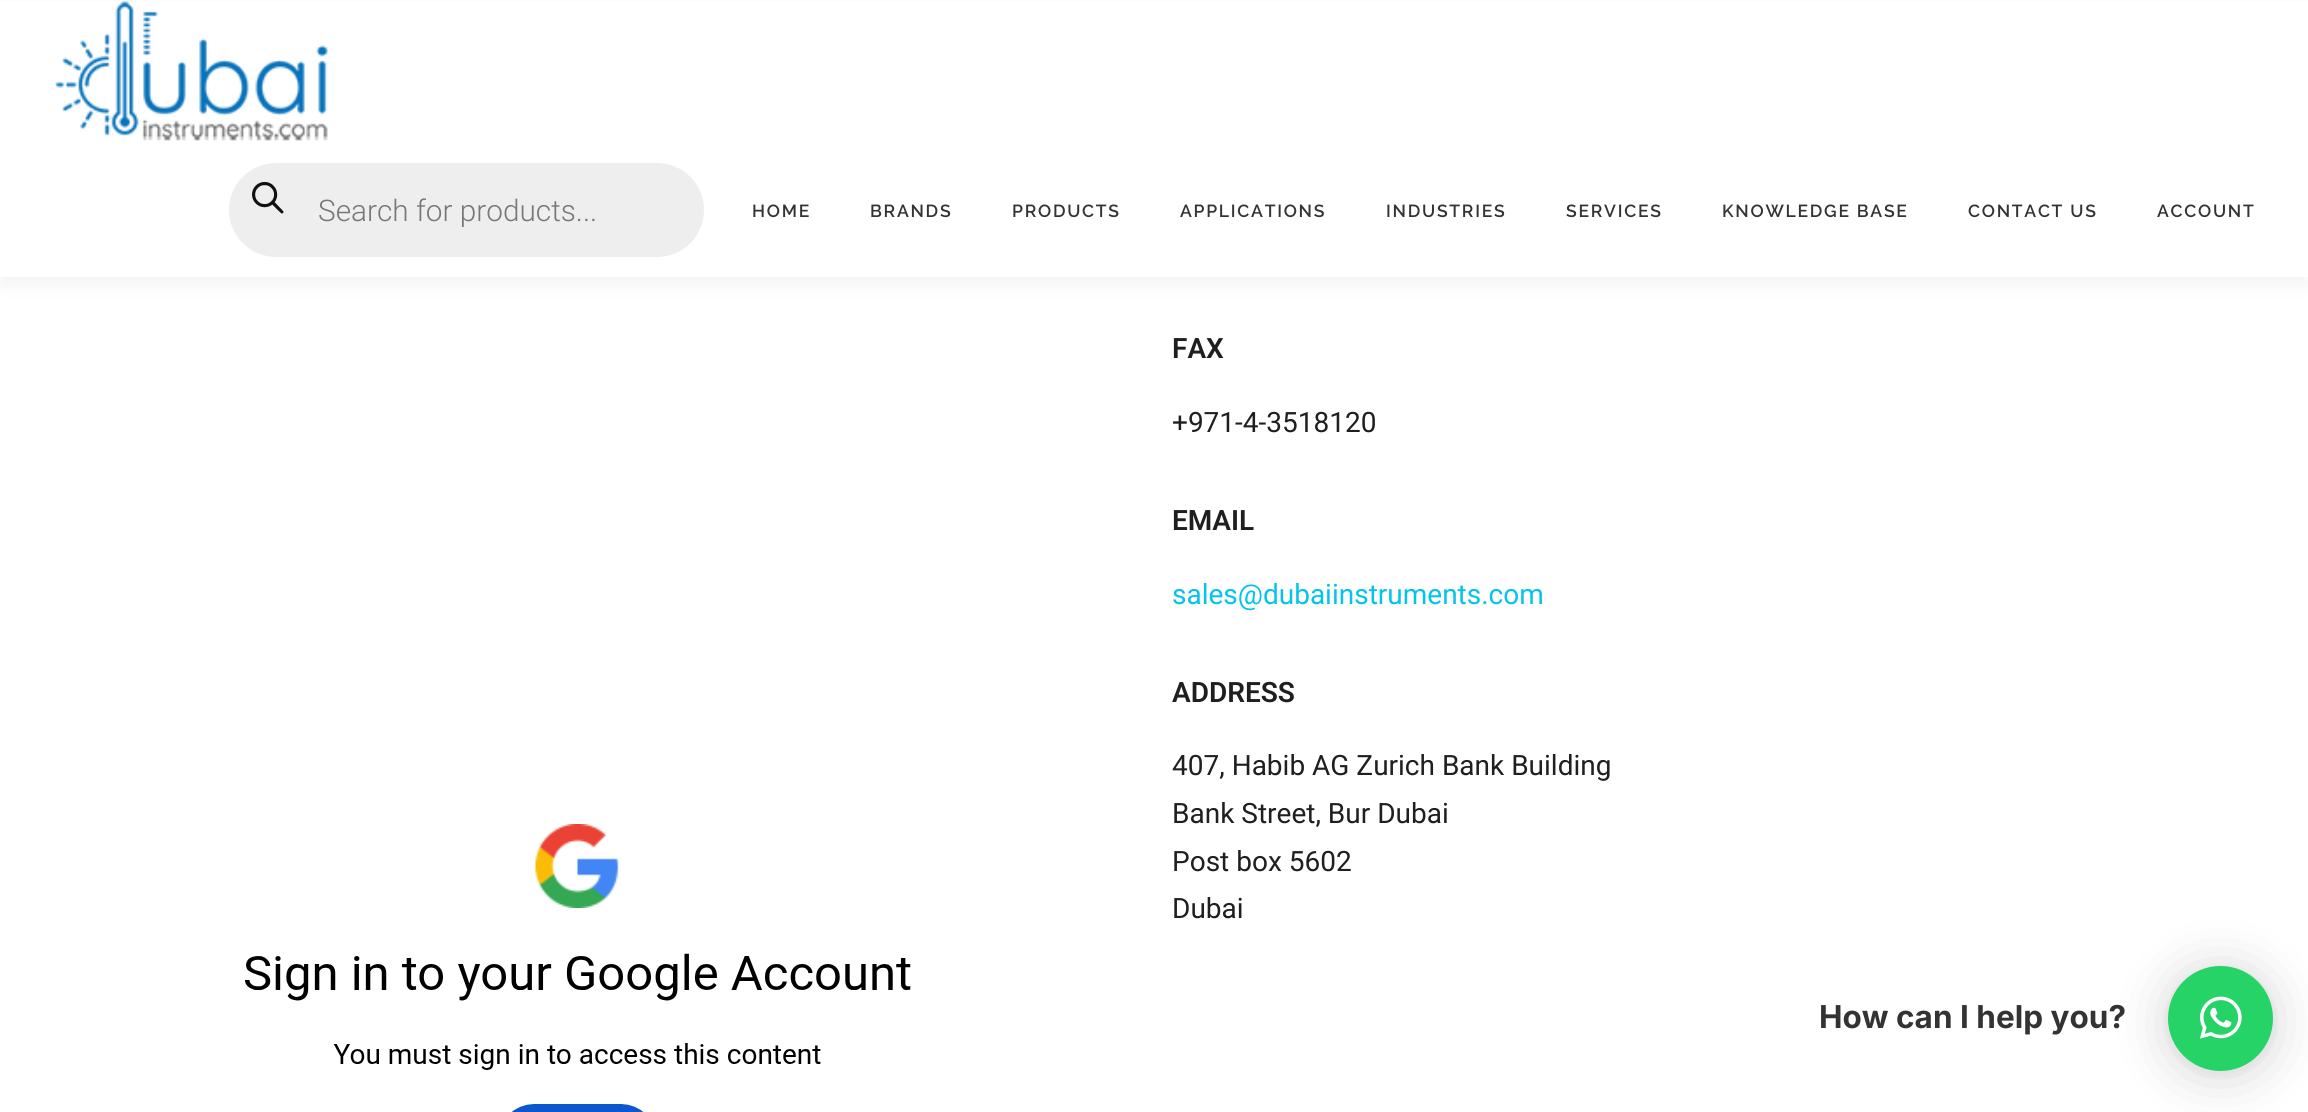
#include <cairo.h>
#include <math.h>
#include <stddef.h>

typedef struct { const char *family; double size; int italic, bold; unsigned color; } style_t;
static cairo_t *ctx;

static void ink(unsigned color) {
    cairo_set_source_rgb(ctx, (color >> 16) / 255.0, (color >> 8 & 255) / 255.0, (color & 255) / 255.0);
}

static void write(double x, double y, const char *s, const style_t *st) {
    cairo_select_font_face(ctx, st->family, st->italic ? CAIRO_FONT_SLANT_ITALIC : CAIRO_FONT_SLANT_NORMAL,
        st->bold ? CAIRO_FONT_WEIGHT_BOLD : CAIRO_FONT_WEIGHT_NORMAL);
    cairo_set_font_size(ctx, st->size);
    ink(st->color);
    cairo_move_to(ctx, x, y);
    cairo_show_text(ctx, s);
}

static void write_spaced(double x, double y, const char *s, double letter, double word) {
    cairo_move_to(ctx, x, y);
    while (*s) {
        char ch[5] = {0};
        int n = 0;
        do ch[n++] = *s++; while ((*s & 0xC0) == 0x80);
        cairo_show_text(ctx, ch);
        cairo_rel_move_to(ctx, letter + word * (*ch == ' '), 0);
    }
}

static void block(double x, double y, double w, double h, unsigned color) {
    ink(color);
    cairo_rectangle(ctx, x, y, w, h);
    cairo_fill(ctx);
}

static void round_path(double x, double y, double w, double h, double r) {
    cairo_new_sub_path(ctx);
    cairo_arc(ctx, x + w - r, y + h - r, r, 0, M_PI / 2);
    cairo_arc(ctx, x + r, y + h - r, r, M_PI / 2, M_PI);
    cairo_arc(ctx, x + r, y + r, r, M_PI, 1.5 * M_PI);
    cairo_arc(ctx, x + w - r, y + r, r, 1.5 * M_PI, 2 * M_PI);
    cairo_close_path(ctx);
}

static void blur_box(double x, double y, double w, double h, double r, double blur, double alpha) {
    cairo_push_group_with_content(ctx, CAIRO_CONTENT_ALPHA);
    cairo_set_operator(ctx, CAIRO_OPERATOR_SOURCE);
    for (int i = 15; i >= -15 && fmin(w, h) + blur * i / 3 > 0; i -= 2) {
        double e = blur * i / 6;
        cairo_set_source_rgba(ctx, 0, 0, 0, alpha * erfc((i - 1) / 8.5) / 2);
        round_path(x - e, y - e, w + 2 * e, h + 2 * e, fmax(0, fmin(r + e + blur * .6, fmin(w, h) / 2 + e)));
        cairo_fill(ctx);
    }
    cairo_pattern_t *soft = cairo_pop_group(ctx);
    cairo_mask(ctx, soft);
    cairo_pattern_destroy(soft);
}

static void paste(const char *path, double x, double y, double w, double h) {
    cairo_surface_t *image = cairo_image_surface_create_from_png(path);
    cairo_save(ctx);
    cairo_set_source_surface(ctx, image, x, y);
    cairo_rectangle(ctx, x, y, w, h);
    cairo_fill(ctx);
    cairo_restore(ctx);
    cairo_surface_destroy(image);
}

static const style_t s1 = {"Roboto Light", 29.75, 0, 0, 0x777777};
static const style_t s2 = {"Roboto SemiBold", 28, 0, 0, 0x1f1f1f};
static const style_t s3 = {"Roboto", 28, 0, 0, 0x1f1f1f};
static const style_t s4 = {"Roboto", 28, 0, 0, 0x03c4eb};
static const style_t s5 = {"Inter", 31.5, 0, 1, 0x333333};

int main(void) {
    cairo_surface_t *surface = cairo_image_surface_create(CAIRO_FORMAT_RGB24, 2308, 1112);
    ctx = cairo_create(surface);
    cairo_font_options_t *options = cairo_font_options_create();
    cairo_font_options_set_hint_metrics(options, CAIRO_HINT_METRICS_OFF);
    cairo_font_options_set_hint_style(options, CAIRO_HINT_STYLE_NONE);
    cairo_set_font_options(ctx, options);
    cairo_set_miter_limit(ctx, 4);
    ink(0xffffff);
    cairo_paint(ctx);
    ink(0x323232);
    blur_box(0, 9, 2308, 276, 0, 9, 0.06);
    block(0, 2, 2308, 275, 0xffffff);
    paste("pic1.png", 55, 1, 273, 140);
    ink(0xeeeeee);
    round_path(229, 163, 475, 94, 47);
    cairo_fill(ctx);
    paste("pic2.png", 252, 182, 32, 32);
    write(318, 221, "Search for products...", &s1);
    cairo_select_font_face(ctx, "Raleway SemiBold", CAIRO_FONT_SLANT_NORMAL, CAIRO_FONT_WEIGHT_NORMAL);
    cairo_set_font_size(ctx, 17.5);
    ink(0x333333);
    write_spaced(752, 217, "HOME", 1.75, 0);
    write_spaced(870, 217, "BRANDS", 1.75, 0);
    write_spaced(1012, 217, "PRODUCTS", 1.75, 0);
    write_spaced(1180, 217, "APPLICATIONS", 1.75, 0);
    write_spaced(1386, 217, "INDUSTRIES", 1.75, 0);
    write_spaced(1566, 217, "SERVICES", 1.75, 0);
    write_spaced(1722, 217, "KNOWLEDGE BASE", 1.75, 0);
    write_spaced(1968, 217, "CONTACT US", 1.75, 0);
    write_spaced(2157, 217, "ACCOUNT", 1.75, 0);
    write(1172, 358, "FAX", &s2);
    write(1172, 432, "+971-4-3518120", &s3);
    write(1172, 530, "EMAIL", &s2);
    write(1172, 604, "sales@dubaiinstruments.com", &s4);
    write(1172, 702, "ADDRESS", &s2);
    write(1172, 775, "407, Habib AG Zurich Bank Building", &s3);
    write(1172, 823, "Bank Street, Bur Dubai", &s3);
    write(1172, 871, "Post box 5602", &s3);
    write(1172, 918, "Dubai", &s3);
    paste("pic3.png", 245, 824, 666, 288);
    ink(0x000000);
    blur_box(2168, 970, 105, 105, 52.5, 28, 0.16);
    blur_box(2168, 968, 105, 105, 52.5, 5, 0.06);
    ink(0x25d366);
    cairo_arc(ctx, 2220.5, 1018.5, 52.5, 0, 2 * M_PI);
    cairo_fill(ctx);
    write(1819, 1028, "How can I help you?", &s5);
    paste("pic4.png", 2199, 996, 43, 43);
    cairo_surface_write_to_png(surface, "screenshot.png");
    cairo_font_options_destroy(options);
    cairo_destroy(ctx);
    cairo_surface_destroy(surface);
    return 0;
}
